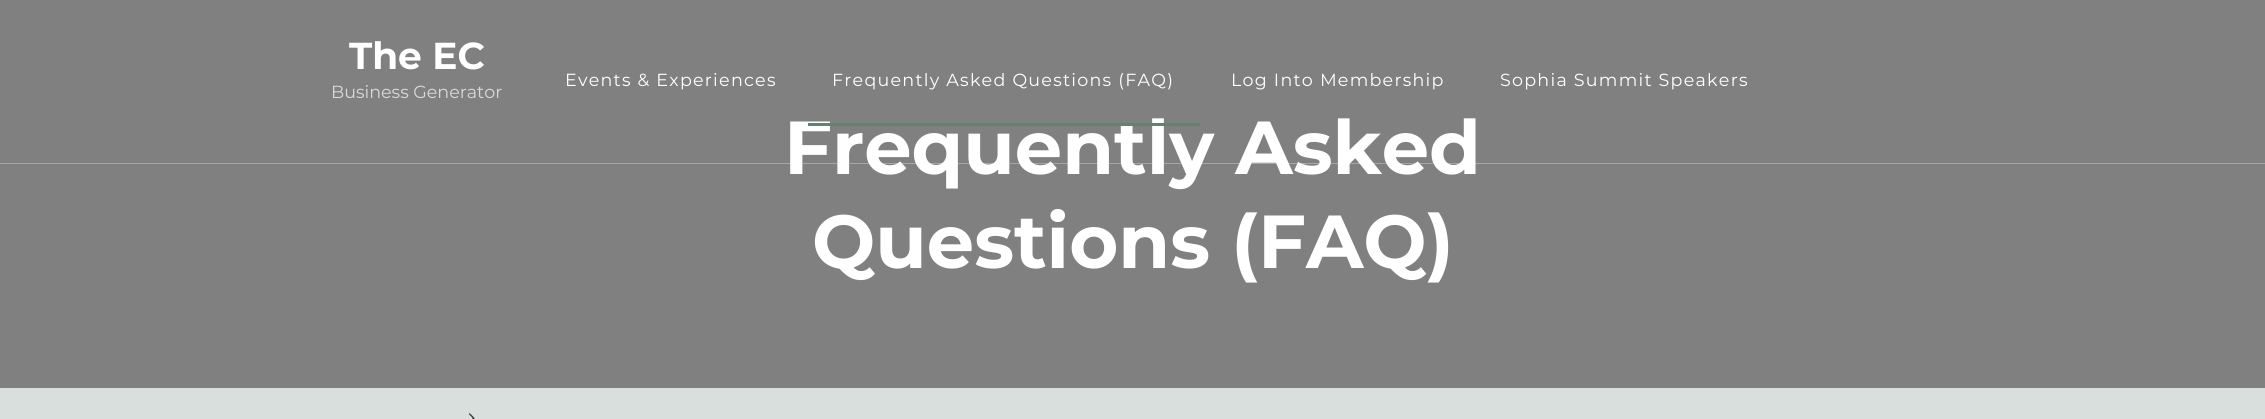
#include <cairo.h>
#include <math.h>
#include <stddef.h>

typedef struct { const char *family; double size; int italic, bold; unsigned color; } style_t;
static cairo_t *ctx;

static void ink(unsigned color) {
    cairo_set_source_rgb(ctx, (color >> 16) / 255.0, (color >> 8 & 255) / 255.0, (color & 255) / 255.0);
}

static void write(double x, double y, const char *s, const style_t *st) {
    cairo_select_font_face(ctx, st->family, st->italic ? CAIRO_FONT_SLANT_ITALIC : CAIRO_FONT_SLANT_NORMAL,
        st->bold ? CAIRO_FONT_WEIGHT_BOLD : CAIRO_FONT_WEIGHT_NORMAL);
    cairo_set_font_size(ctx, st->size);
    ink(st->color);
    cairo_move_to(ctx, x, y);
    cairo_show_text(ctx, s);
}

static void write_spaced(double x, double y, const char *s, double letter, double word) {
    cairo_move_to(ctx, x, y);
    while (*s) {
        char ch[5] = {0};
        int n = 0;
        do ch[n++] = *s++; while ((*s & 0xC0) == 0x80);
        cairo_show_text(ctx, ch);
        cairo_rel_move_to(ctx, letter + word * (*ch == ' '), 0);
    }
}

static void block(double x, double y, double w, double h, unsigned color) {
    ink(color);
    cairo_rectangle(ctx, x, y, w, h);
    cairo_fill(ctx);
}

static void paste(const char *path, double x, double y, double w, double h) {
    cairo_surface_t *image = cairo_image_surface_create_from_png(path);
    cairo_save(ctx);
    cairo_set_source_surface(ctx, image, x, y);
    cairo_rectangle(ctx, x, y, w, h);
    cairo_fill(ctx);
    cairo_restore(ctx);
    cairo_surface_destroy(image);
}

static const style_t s1 = {"Montserrat", 75, 0, 1, 0xffffff};
static const style_t s2 = {"Montserrat", 37.5, 0, 1, 0xffffff};
static const style_t s3 = {"Montserrat", 17.5, 0, 0, 0xd9d9d9};

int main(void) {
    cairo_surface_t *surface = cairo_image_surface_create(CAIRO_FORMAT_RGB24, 2265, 419);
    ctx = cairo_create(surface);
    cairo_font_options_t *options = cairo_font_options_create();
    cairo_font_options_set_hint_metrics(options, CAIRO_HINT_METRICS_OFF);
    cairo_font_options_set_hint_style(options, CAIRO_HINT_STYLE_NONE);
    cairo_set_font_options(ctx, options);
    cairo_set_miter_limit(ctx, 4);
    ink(0xd9dfdc);
    cairo_paint(ctx);
    block(0, 0, 2265, 388, 0x808080);
    write(784, 174, "Frequently Asked", &s1);
    cairo_set_source_rgba(ctx, 1, 1, 1, 0.3);
    cairo_rectangle(ctx, 0, 163, 2265, 1);
    cairo_fill(ctx);
    write(349, 69, "The EC", &s2);
    write(331, 98, "Business Generator", &s3);
    ink(0xffffff);
    write_spaced(565, 86, "Events & Experiences", 1.25, 0);
    write_spaced(832, 86, "Frequently Asked Questions (FAQ)", 1.25, 0);
    block(808, 123, 392, 3, 0x667f73);
    ink(0xffffff);
    write_spaced(1231, 86, "Log Into Membership", 1.25, 0);
    write_spaced(1500, 86, "Sophia Summit Speakers", 1.25, 0);
    write(812, 268, "Questions (FAQ)", &s1);
    paste("pic1.png", 468, 413, 7, 6);
    cairo_surface_write_to_png(surface, "screenshot.png");
    cairo_font_options_destroy(options);
    cairo_destroy(ctx);
    cairo_surface_destroy(surface);
    return 0;
}
